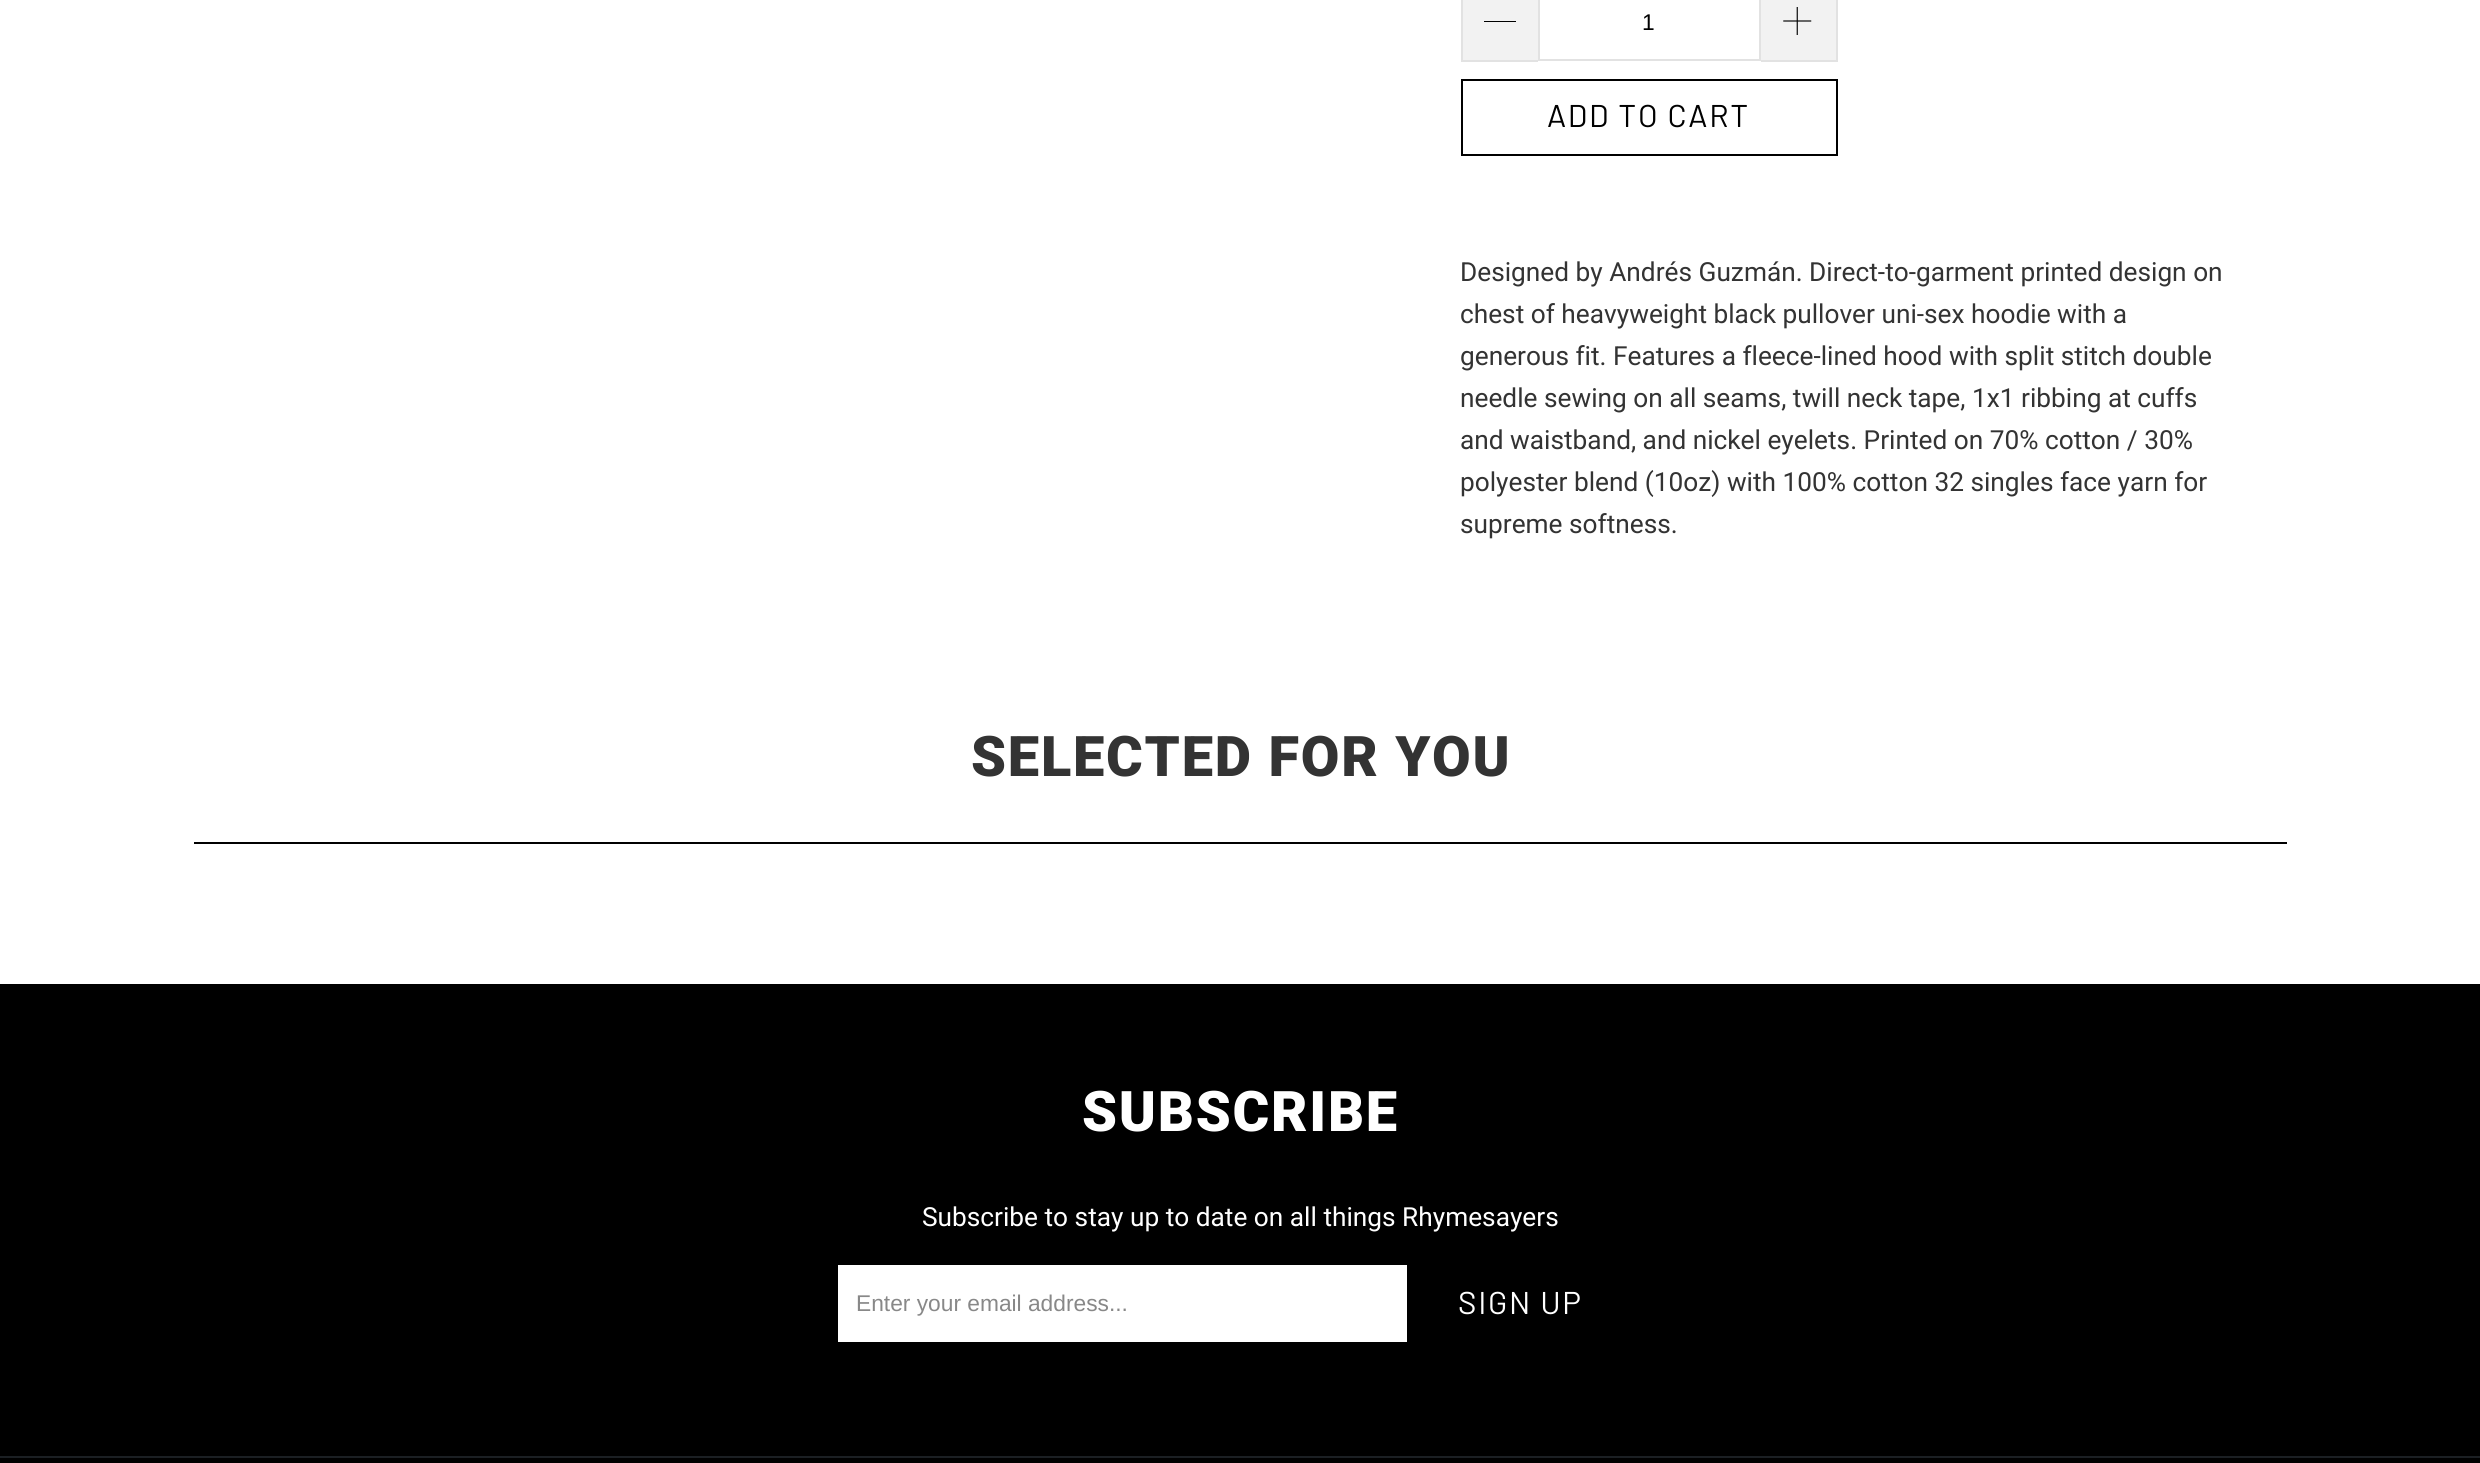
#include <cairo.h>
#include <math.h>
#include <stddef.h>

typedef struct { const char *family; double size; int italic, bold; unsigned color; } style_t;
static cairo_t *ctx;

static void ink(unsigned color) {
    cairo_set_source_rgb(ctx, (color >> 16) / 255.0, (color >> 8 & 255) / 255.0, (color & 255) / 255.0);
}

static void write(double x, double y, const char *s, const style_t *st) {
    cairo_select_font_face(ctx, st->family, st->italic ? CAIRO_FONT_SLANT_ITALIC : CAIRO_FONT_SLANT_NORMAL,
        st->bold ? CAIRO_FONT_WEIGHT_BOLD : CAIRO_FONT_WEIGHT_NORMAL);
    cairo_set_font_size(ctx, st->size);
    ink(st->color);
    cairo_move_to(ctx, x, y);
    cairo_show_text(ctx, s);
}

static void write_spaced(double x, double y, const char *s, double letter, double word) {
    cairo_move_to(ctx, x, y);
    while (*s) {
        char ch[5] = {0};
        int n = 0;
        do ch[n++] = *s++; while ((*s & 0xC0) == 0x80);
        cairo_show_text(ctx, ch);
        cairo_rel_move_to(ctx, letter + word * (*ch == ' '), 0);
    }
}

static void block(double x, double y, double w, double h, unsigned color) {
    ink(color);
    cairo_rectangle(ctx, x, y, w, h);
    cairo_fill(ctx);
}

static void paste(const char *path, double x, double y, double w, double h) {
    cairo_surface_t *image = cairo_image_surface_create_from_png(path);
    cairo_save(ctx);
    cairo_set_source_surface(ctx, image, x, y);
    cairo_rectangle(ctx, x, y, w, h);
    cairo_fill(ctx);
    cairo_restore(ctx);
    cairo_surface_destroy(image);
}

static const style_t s1 = {"Liberation Sans", 22.75, 0, 0, 0x000000};
static const style_t s2 = {"Roboto", 26.25, 0, 0, 0x333333};
static const style_t s3 = {"Roboto", 26.25, 0, 0, 0xffffff};
static const style_t s4 = {"Liberation Sans", 22.75, 0, 0, 0x888888};

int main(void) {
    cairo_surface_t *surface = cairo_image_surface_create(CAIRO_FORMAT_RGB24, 2480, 1463);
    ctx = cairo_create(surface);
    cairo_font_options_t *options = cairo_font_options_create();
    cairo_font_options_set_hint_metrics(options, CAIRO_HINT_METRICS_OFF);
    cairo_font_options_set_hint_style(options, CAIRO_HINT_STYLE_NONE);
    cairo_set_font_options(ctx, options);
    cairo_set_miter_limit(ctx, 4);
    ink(0xffffff);
    cairo_paint(ctx);
    block(1463, 0, 75, 60, 0xf2f2f2);
    block(1461, 60, 77, 2, 0xe2e2e2);
    block(1461, 0, 2, 61, 0xe2e2e2);
    block(1484, 21, 32, 1, 0x000000);
    cairo_rectangle(ctx, 1539, -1, 221, 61);
    ink(0xe2e2e2);
    cairo_stroke(ctx);
    write(1642, 30, "1", &s1);
    block(1761, 0, 75, 60, 0xf2f2f2);
    block(1836, 0, 2, 61, 0xe2e2e2);
    block(1761, 60, 77, 2, 0xe2e2e2);
    paste("pic1.png", 1783, 7, 29, 28);
    cairo_rectangle(ctx, 1462, 80, 375, 75);
    ink(0x000000);
    cairo_stroke(ctx);
    cairo_select_font_face(ctx, "Barlow", CAIRO_FONT_SLANT_NORMAL, CAIRO_FONT_WEIGHT_NORMAL);
    cairo_set_font_size(ctx, 31.5);
    write_spaced(1547, 127, "ADD TO CART", 1.75, 0);
    write(1460, 281, "Designed by Andrés Guzmán. Direct-to-garment printed design on", &s2);
    write(1460, 323, "chest of heavyweight black pullover uni-sex hoodie with a", &s2);
    write(1460, 365, "generous fit. Features a fleece-lined hood with split stitch double", &s2);
    write(1460, 407, "needle sewing on all seams, twill neck tape, 1x1 ribbing at cuffs", &s2);
    write(1460, 449, "and waistband, and nickel eyelets. Printed on 70% cotton / 30%", &s2);
    write(1460, 491, "polyester blend (10oz) with 100% cotton 32 singles face yarn for", &s2);
    write(1460, 533, "supreme softness.", &s2);
    cairo_select_font_face(ctx, "Roboto Black", CAIRO_FONT_SLANT_NORMAL, CAIRO_FONT_WEIGHT_NORMAL);
    cairo_set_font_size(ctx, 56);
    write_spaced(971, 776, "SELECTED FOR YOU", 1.75, 0);
    block(194, 842, 2093, 2, 0x000000);
    block(0, 984, 2480, 472, 0x000000);
    ink(0xffffff);
    write_spaced(1082, 1131, "SUBSCRIBE", 1.75, 0);
    write(922, 1226, "Subscribe to stay up to date on all things Rhymesayers", &s3);
    block(838, 1265, 569, 77, 0xffffff);
    write(856, 1311, "Enter your email address...", &s4);
    cairo_select_font_face(ctx, "Barlow", CAIRO_FONT_SLANT_NORMAL, CAIRO_FONT_WEIGHT_NORMAL);
    cairo_set_font_size(ctx, 31.5);
    ink(0xffffff);
    write_spaced(1458, 1314, "SIGN UP", 1.75, 0);
    block(0, 1458, 2480, 5, 0x000000);
    block(0, 1456, 2480, 2, 0x1b1f23);
    cairo_surface_write_to_png(surface, "screenshot.png");
    cairo_font_options_destroy(options);
    cairo_destroy(ctx);
    cairo_surface_destroy(surface);
    return 0;
}
